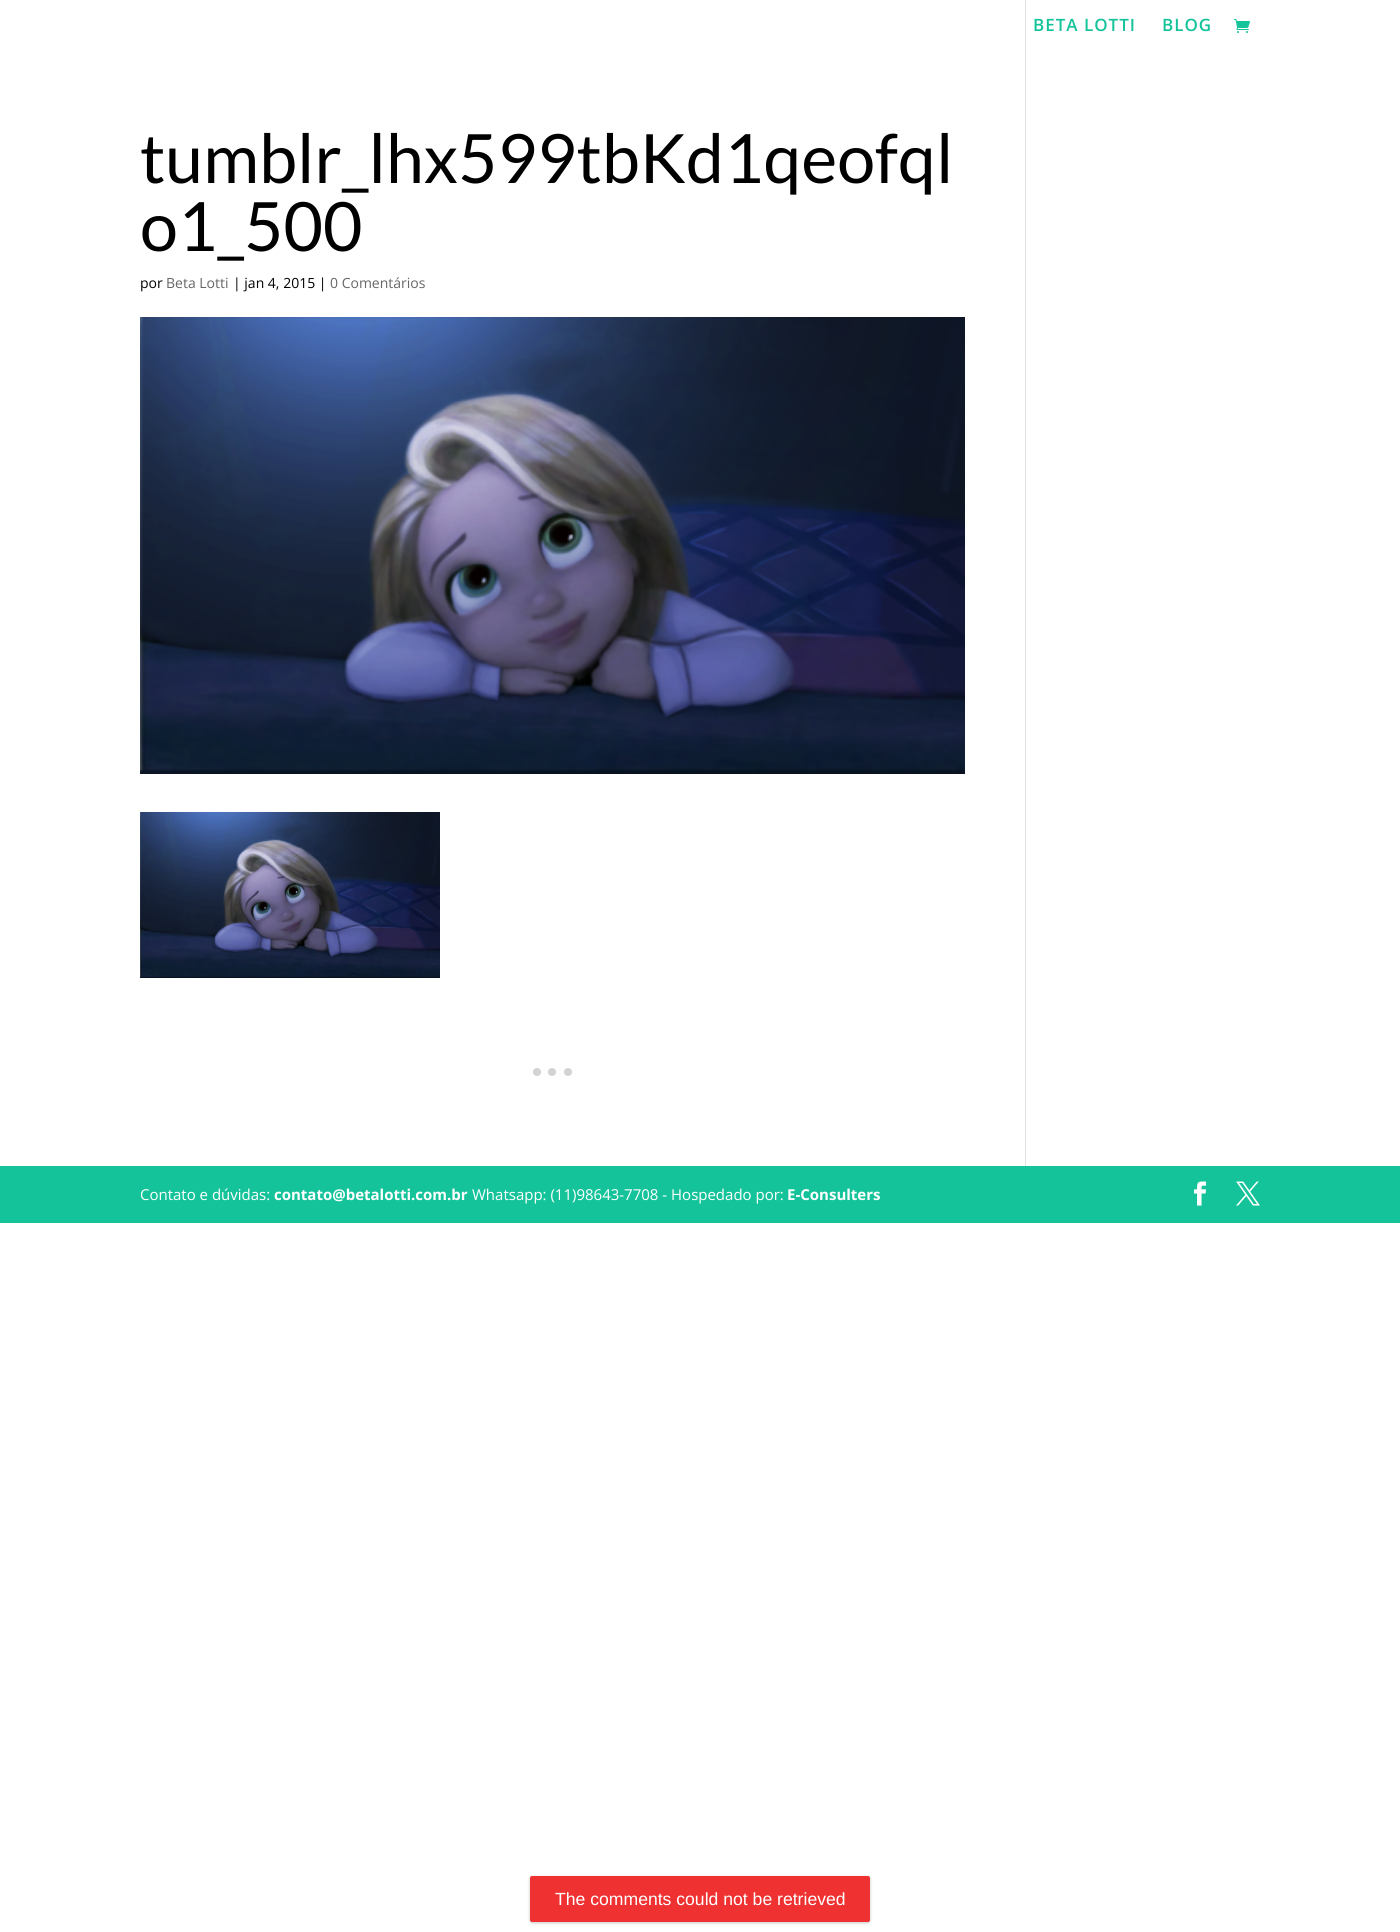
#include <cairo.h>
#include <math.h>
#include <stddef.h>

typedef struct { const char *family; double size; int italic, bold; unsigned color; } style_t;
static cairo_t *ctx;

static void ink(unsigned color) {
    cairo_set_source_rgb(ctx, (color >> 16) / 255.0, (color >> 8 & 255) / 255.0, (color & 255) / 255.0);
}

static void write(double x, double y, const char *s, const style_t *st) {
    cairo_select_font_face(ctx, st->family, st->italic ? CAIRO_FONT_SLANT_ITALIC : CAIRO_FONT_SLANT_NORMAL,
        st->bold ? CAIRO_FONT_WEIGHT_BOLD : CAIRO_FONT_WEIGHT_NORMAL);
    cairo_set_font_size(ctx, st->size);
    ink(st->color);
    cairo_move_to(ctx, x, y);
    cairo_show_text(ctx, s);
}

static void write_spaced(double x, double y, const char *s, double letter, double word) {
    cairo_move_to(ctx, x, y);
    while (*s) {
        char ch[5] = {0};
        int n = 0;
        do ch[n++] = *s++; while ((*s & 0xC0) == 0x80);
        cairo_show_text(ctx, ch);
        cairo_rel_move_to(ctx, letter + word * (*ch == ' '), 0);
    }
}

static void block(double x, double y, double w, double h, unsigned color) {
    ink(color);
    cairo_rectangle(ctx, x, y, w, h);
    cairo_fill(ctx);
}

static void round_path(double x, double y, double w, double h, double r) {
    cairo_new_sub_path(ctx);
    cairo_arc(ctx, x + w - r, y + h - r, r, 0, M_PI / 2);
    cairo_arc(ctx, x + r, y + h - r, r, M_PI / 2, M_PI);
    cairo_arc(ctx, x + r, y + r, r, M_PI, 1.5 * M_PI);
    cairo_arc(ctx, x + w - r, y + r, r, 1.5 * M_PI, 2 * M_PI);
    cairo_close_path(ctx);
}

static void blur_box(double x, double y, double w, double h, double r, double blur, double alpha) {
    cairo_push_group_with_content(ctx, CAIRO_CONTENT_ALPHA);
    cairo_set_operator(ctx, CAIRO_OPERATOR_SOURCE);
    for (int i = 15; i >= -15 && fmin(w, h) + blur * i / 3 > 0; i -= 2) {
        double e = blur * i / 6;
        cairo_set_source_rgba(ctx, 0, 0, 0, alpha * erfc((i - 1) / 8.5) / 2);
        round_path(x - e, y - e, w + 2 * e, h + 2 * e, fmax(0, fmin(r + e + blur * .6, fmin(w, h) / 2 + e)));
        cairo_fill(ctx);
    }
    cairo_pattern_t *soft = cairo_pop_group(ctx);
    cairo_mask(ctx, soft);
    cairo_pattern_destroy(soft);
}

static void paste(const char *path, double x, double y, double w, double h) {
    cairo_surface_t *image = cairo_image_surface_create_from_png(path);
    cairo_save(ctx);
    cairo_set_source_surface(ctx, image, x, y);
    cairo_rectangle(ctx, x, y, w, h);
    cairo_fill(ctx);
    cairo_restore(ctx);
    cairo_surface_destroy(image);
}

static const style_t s1 = {"Lato", 68, 0, 0, 0x000000};
static const style_t s2 = {"Open Sans", 14, 0, 0, 0x000000};
static const style_t s3 = {"Open Sans", 14, 0, 0, 0x666666};
static const style_t s4 = {"Open Sans", 15, 0, 0, 0xffffff};
static const style_t s5 = {"Open Sans", 15, 0, 1, 0xffffff};
static const style_t s6 = {"Liberation Sans", 17.6, 0, 0, 0xffffff};

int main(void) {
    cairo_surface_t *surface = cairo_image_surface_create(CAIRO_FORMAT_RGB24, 1400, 1932);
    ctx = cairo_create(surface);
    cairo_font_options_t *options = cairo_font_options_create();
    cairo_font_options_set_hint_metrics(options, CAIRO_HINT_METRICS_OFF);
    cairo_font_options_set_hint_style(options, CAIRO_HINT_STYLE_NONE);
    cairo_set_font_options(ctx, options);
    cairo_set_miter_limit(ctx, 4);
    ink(0xffffff);
    cairo_paint(ctx);
    cairo_select_font_face(ctx, "Open Sans SemiBold", CAIRO_FONT_SLANT_NORMAL, CAIRO_FONT_WEIGHT_NORMAL);
    cairo_set_font_size(ctx, 17);
    ink(0x15c39a);
    write_spaced(1033, 31, "BETA LOTTI", 1, 0);
    write_spaced(1162, 31, "BLOG", 1, 0);
    paste("pic1.png", 1234, 19, 16, 14);
    write(140, 183, "tumblr_lhx599tbKd1qeofql", &s1);
    write(140, 251, "o1_500", &s1);
    write(140, 288, "por", &s2);
    write(166, 288, "Beta Lotti", &s3);
    write(233, 288, "| jan 4, 2015 |", &s2);
    write(330, 288, "0 Comentários", &s3);
    paste("pic2.png", 140, 317, 825, 457);
    paste("pic3.png", 140, 812, 300, 166);
    ink(0xd3d3d3);
    cairo_arc(ctx, 537, 1072, 3.5, 0, 2 * M_PI);
    cairo_fill_preserve(ctx);
    cairo_set_line_width(ctx, 1);
    cairo_stroke(ctx);
    cairo_arc(ctx, 552, 1072, 3.5, 0, 2 * M_PI);
    cairo_fill_preserve(ctx);
    cairo_stroke(ctx);
    cairo_arc(ctx, 568, 1072, 3.5, 0, 2 * M_PI);
    cairo_fill_preserve(ctx);
    cairo_stroke(ctx);
    block(1025, 0, 1, 1166, 0xe2e2e2);
    block(0, 1166, 1400, 57, 0x15c39a);
    write(140, 1200, "Contato e dúvidas:", &s4);
    write(274, 1200, "contato@betalotti.com.br", &s5);
    write(472, 1200, "Whatsapp: (11)98643-7708 - Hospedado por:", &s4);
    write(787, 1200, "E-Consulters", &s5);
    paste("pic4.png", 1194, 1181, 13, 25);
    paste("pic5.png", 1236, 1181, 24, 25);
    ink(0x000000);
    blur_box(530, 1877, 340, 46, 2, 1.5, 0.22);
    ink(0xef3131);
    round_path(530, 1876, 340, 46, 2);
    cairo_fill(ctx);
    write(555, 1905, "The comments could not be retrieved", &s6);
    cairo_surface_write_to_png(surface, "screenshot.png");
    cairo_font_options_destroy(options);
    cairo_destroy(ctx);
    cairo_surface_destroy(surface);
    return 0;
}
